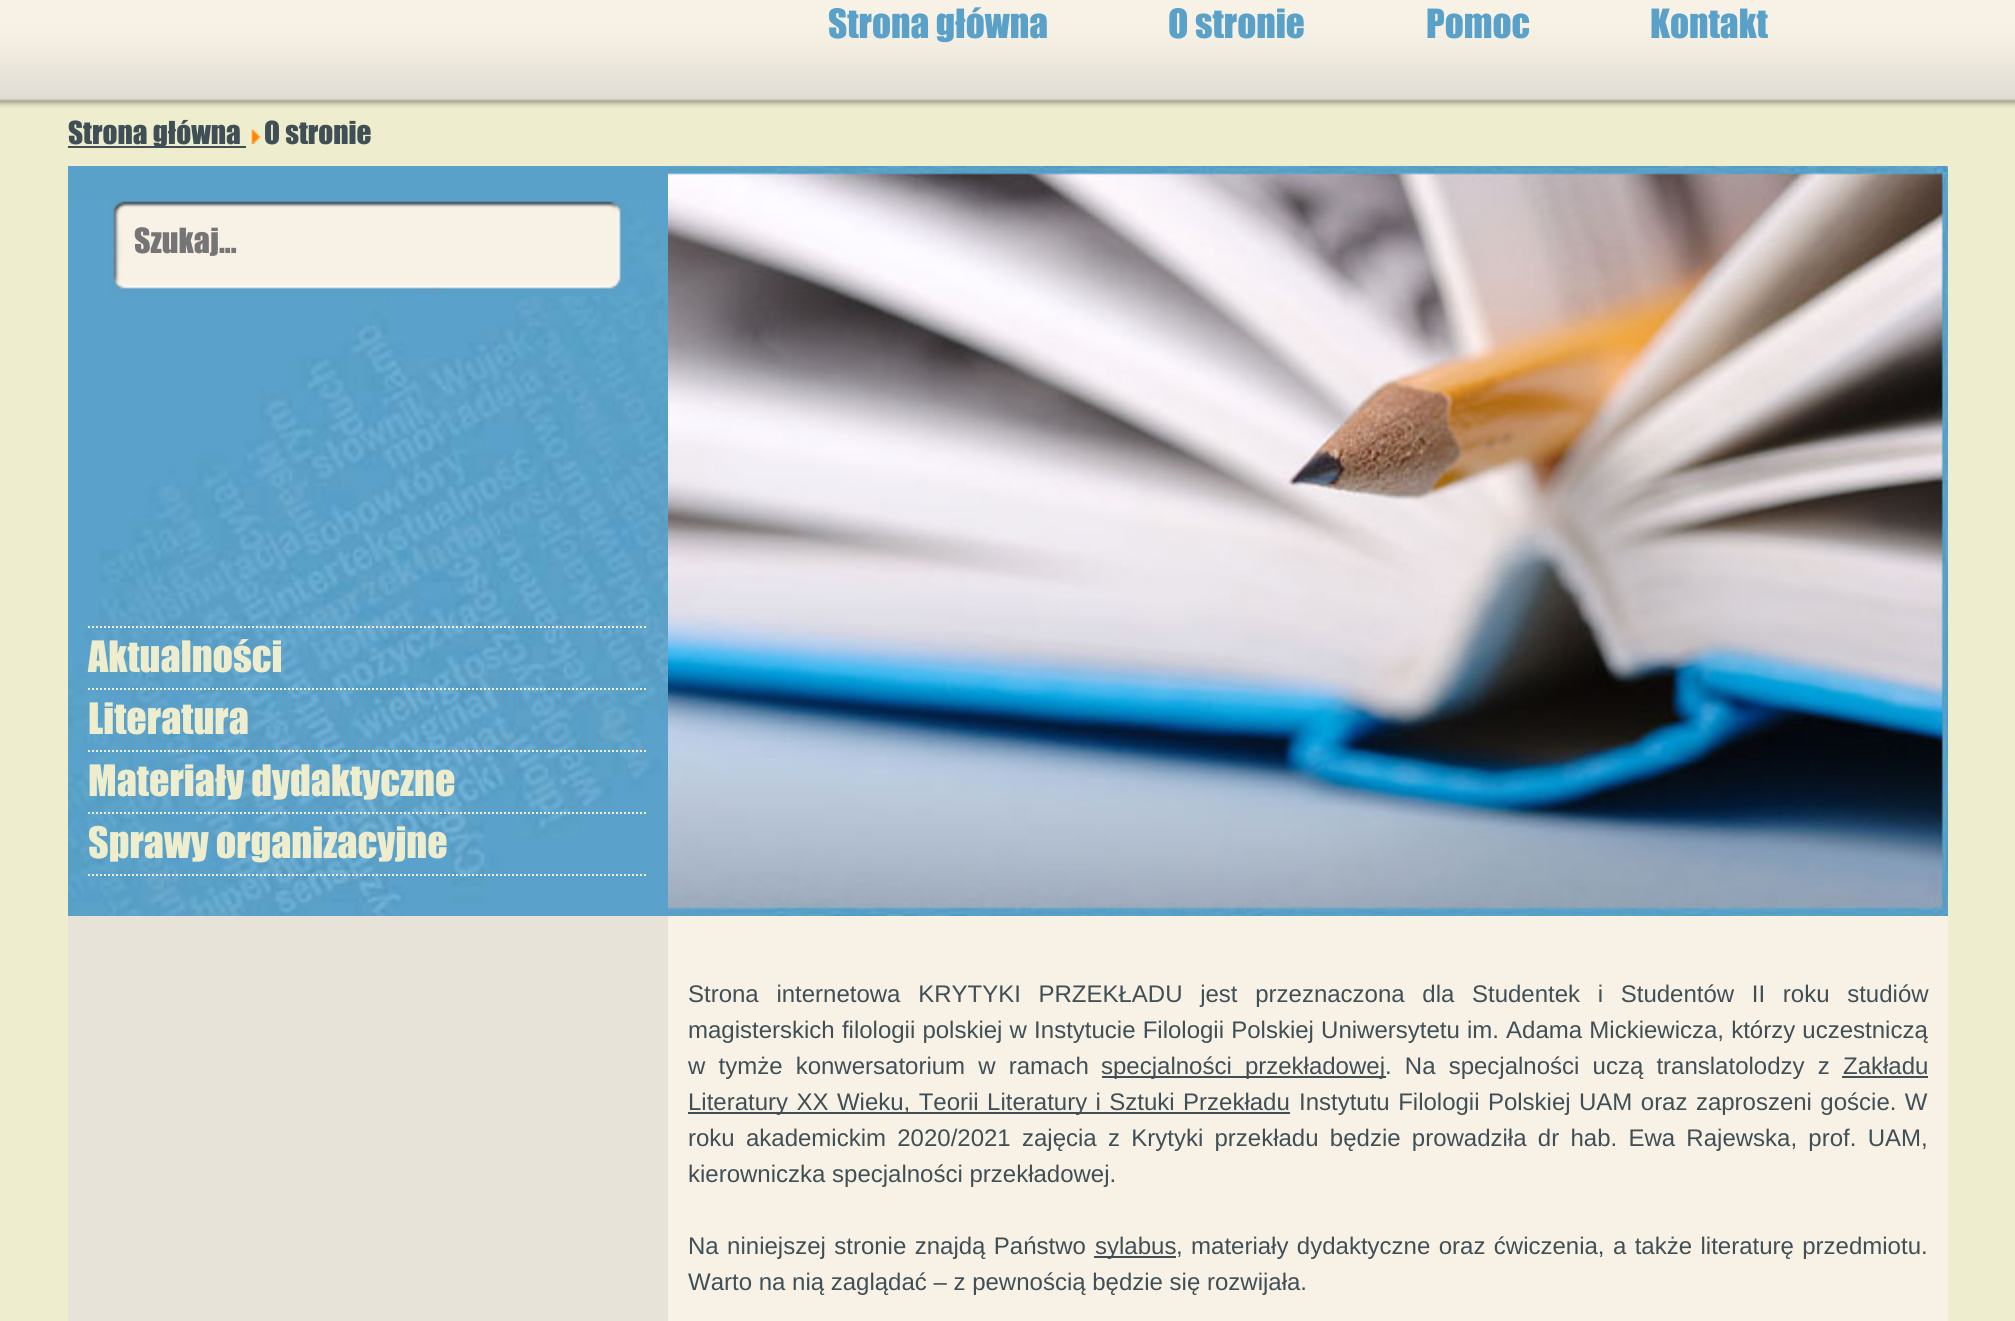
#include <cairo.h>
#include <math.h>
#include <stddef.h>

typedef struct { const char *family; double size; int italic, bold; unsigned color; } style_t;
static cairo_t *ctx;

static void ink(unsigned color) {
    cairo_set_source_rgb(ctx, (color >> 16) / 255.0, (color >> 8 & 255) / 255.0, (color & 255) / 255.0);
}

static void write(double x, double y, const char *s, const style_t *st) {
    cairo_select_font_face(ctx, st->family, st->italic ? CAIRO_FONT_SLANT_ITALIC : CAIRO_FONT_SLANT_NORMAL,
        st->bold ? CAIRO_FONT_WEIGHT_BOLD : CAIRO_FONT_WEIGHT_NORMAL);
    cairo_set_font_size(ctx, st->size);
    ink(st->color);
    cairo_move_to(ctx, x, y);
    cairo_show_text(ctx, s);
}

static void write_spaced(double x, double y, const char *s, double letter, double word) {
    cairo_move_to(ctx, x, y);
    while (*s) {
        char ch[5] = {0};
        int n = 0;
        do ch[n++] = *s++; while ((*s & 0xC0) == 0x80);
        cairo_show_text(ctx, ch);
        cairo_rel_move_to(ctx, letter + word * (*ch == ' '), 0);
    }
}

static void block(double x, double y, double w, double h, unsigned color) {
    ink(color);
    cairo_rectangle(ctx, x, y, w, h);
    cairo_fill(ctx);
}

static void paste(const char *path, double x, double y, double w, double h) {
    cairo_surface_t *image = cairo_image_surface_create_from_png(path);
    cairo_save(ctx);
    cairo_set_source_surface(ctx, image, x, y);
    cairo_rectangle(ctx, x, y, w, h);
    cairo_fill(ctx);
    cairo_restore(ctx);
    cairo_surface_destroy(image);
}

static const style_t s1 = {"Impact", 37.25, 0, 0, 0x59a1c8};
static const style_t s2 = {"Impact", 29.25, 0, 0, 0x404f56};
static const style_t s3 = {"Impact", 32, 0, 0, 0x757575};
static const style_t s4 = {"Impact", 40, 0, 0, 0xeeedce};
static const style_t s5 = {"Liberation Sans", 24, 0, 0, 0x404f56};

int main(void) {
    cairo_surface_t *surface = cairo_image_surface_create(CAIRO_FORMAT_RGB24, 2015, 1321);
    ctx = cairo_create(surface);
    cairo_font_options_t *options = cairo_font_options_create();
    cairo_font_options_set_hint_metrics(options, CAIRO_HINT_METRICS_OFF);
    cairo_font_options_set_hint_style(options, CAIRO_HINT_STYLE_NONE);
    cairo_set_font_options(ctx, options);
    cairo_set_miter_limit(ctx, 4);
    ink(0xeeedce);
    cairo_paint(ctx);
    paste("pic1.png", 0, 0, 2015, 108);
    paste("pic2.png", 48, 0, 1920, 108);
    write(828, 38, "Strona główna", &s1);
    write(1168, 38, "O stronie", &s1);
    write(1426, 38, "Pomoc", &s1);
    write(1650, 38, "Kontakt", &s1);
    block(68, 146, 178, 2, 0x404f56);
    write(68, 144, "Strona główna", &s2);
    paste("pic3.png", 251, 129, 10, 15);
    write(264, 144, "O stronie", &s2);
    block(68, 166, 600, 32, 0x59a1c8);
    paste("pic4.png", 68, 198, 600, 718);
    block(108, 198, 520, 98, 0x59a1c8);
    paste("pic5.png", 113, 201, 509, 90);
    block(131, 260, 3, 4, 0xf7f1e6);
    write(134, 253, "Szukaj...", &s3);
    cairo_new_path(ctx);
    cairo_move_to(ctx, 88, 627);
    cairo_line_to(ctx, 648, 627);
    ink(0xeeedce);
    cairo_set_dash(ctx, (double[]){2, 2}, 2, 0);
    cairo_stroke(ctx);
    cairo_new_path(ctx);
    cairo_move_to(ctx, 88, 689);
    cairo_line_to(ctx, 648, 689);
    cairo_stroke(ctx);
    write(88, 672, "Aktualności", &s4);
    cairo_new_path(ctx);
    cairo_move_to(ctx, 88, 751);
    cairo_line_to(ctx, 648, 751);
    cairo_stroke(ctx);
    write(88, 734, "Literatura", &s4);
    cairo_new_path(ctx);
    cairo_move_to(ctx, 88, 813);
    cairo_line_to(ctx, 648, 813);
    cairo_stroke(ctx);
    write(88, 796, "Materiały dydaktyczne", &s4);
    cairo_new_path(ctx);
    cairo_move_to(ctx, 88, 875);
    cairo_line_to(ctx, 648, 875);
    cairo_stroke(ctx);
    write(88, 858, "Sprawy organizacyjne", &s4);
    paste("pic6.png", 668, 166, 1280, 750);
    block(68, 916, 600, 405, 0xe8e3d8);
    block(668, 916, 1280, 405, 0xf7f1e6);
    cairo_select_font_face(ctx, "Liberation Sans", CAIRO_FONT_SLANT_NORMAL, CAIRO_FONT_WEIGHT_NORMAL);
    cairo_set_font_size(ctx, 24);
    ink(0x404f56);
    write_spaced(688, 1002, "Strona internetowa KRYTYKI PRZEKŁADU jest przeznaczona dla Studentek i Studentów II roku studiów", 0, 11);
    write_spaced(688, 1038, "magisterskich filologii polskiej w Instytucie Filologii Polskiej Uniwersytetu im. Adama Mickiewicza, którzy uczestniczą", 0, 0.5);
    write_spaced(688, 1074, "w tymże konwersatorium w ramach", 0, 6.5);
    block(1102, 1076, 284, 2, 0x404f56);
    write_spaced(1101, 1074, "specjalności przekładowej. Na specjalności uczą translatolodzy z", 0, 6.5);
    write(1843, 1074, "Zakładu", &s5);
    block(1842, 1076, 86, 2, 0x404f56);
    block(688, 1112, 602, 2, 0x404f56);
    write_spaced(688, 1110, "Literatury XX Wieku, Teorii Literatury i Sztuki Przekładu", 0, 1.75);
    write_spaced(1299, 1110, "Instytutu Filologii Polskiej UAM oraz zaproszeni goście. W", 0, 1.75);
    write_spaced(688, 1146, "roku akademickim 2020/2021 zajęcia z Krytyki przekładu będzie prowadziła dr hab. Ewa Rajewska, prof. UAM,", 0, 4.6);
    write(688, 1182, "kierowniczka specjalności przekładowej.", &s5);
    write_spaced(688, 1254, "Na niniejszej stronie znajdą Państwo", 0, 1.75);
    block(1094, 1256, 82, 2, 0x404f56);
    write(1095, 1254, "sylabus", &s5);
    write_spaced(1176, 1254, ", materiały dydaktyczne oraz ćwiczenia, a także literaturę przedmiotu.", 0, 1.75);
    write(688, 1290, "Warto na nią zaglądać – z pewnością będzie się rozwijała.", &s5);
    cairo_surface_write_to_png(surface, "screenshot.png");
    cairo_font_options_destroy(options);
    cairo_destroy(ctx);
    cairo_surface_destroy(surface);
    return 0;
}
